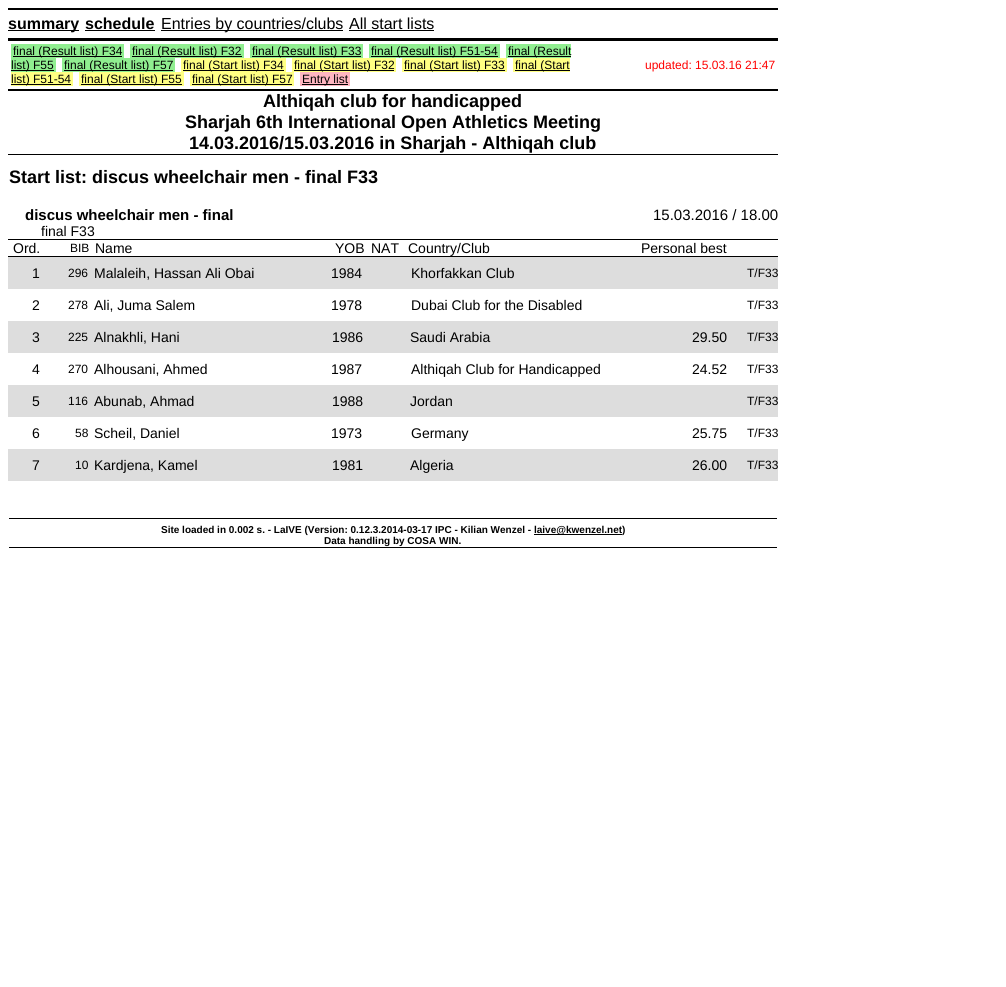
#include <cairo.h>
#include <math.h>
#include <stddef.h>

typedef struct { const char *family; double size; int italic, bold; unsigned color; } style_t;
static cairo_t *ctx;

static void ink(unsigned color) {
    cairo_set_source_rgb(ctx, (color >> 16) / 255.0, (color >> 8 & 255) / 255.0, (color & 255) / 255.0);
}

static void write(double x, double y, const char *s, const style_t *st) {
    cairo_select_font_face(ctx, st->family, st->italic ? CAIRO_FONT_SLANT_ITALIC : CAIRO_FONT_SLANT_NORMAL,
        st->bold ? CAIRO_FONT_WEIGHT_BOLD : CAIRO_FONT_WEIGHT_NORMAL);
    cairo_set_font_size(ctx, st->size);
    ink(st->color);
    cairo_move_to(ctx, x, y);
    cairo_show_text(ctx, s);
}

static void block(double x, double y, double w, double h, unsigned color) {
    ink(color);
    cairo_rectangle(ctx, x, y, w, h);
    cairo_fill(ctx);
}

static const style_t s1 = {"Liberation Sans", 16, 0, 1, 0x000000};
static const style_t s2 = {"Liberation Sans", 16, 0, 0, 0x000000};
static const style_t s3 = {"Liberation Sans", 12, 0, 0, 0x000000};
static const style_t s4 = {"Liberation Sans", 12, 0, 0, 0xff0000};
static const style_t s5 = {"Liberation Sans", 18, 0, 1, 0x000000};
static const style_t s6 = {"Liberation Sans", 15, 0, 1, 0x000000};
static const style_t s7 = {"Liberation Sans", 15, 0, 0, 0x000000};
static const style_t s8 = {"Liberation Sans", 14, 0, 0, 0x000000};
static const style_t s9 = {"Liberation Sans", 10, 0, 1, 0x000000};

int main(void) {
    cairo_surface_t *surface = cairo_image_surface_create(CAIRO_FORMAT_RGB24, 1006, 987);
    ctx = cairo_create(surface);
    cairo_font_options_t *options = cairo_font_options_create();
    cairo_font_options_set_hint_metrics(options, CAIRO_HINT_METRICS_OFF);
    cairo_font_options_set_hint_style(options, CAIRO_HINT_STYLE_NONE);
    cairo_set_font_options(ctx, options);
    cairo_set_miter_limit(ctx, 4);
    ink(0xffffff);
    cairo_paint(ctx);
    block(8, 8, 770, 2, 0x000000);
    block(8, 38, 770, 3, 0x000000);
    block(8, 30, 71, 1, 0x000000);
    write(8, 29, "summary", &s1);
    write(85, 29, "schedule", &s1);
    block(85, 30, 70, 1, 0x000000);
    block(161, 30, 182, 1, 0x000000);
    write(161, 29, "Entries by countries/clubs", &s2);
    write(349, 29, "All start lists", &s2);
    block(349, 30, 85, 1, 0x000000);
    block(8, 89, 770, 2, 0x000000);
    block(11, 44, 113, 14, 0x90ee90);
    block(13, 56, 109, 1, 0x000000);
    write(13, 55, "final (Result list) F34", &s3);
    block(130, 44, 114, 14, 0x90ee90);
    block(132, 56, 110, 1, 0x000000);
    write(132, 55, "final (Result list) F32", &s3);
    block(250, 44, 113, 14, 0x90ee90);
    block(252, 56, 109, 1, 0x000000);
    write(252, 55, "final (Result list) F33", &s3);
    block(369, 44, 131, 14, 0x90ee90);
    block(371, 56, 127, 1, 0x000000);
    write(371, 55, "final (Result list) F51-54", &s3);
    block(506, 44, 65, 14, 0x90ee90);
    block(508, 56, 63, 1, 0x000000);
    write(508, 55, "final (Result", &s3);
    block(11, 58, 45, 14, 0x90ee90);
    block(11, 70, 43, 1, 0x000000);
    write(11, 69, "list) F55", &s3);
    block(62, 58, 113, 14, 0x90ee90);
    block(64, 70, 109, 1, 0x000000);
    write(64, 69, "final (Result list) F57", &s3);
    block(181, 58, 105, 14, 0xffff83);
    block(183, 70, 101, 1, 0x000000);
    write(183, 69, "final (Start list) F34", &s3);
    block(292, 58, 104, 14, 0xffff83);
    block(294, 70, 100, 1, 0x000000);
    write(294, 69, "final (Start list) F32", &s3);
    block(402, 58, 105, 14, 0xffff83);
    block(404, 70, 101, 1, 0x000000);
    write(404, 69, "final (Start list) F33", &s3);
    block(513, 58, 57, 14, 0xffff83);
    block(515, 70, 55, 1, 0x000000);
    write(515, 69, "final (Start", &s3);
    block(11, 72, 62, 14, 0xffff83);
    block(11, 84, 60, 1, 0x000000);
    write(11, 83, "list) F51-54", &s3);
    block(79, 72, 105, 14, 0xffff83);
    block(81, 84, 101, 1, 0x000000);
    write(81, 83, "final (Start list) F55", &s3);
    block(190, 72, 104, 14, 0xffff83);
    block(192, 84, 100, 1, 0x000000);
    write(192, 83, "final (Start list) F57", &s3);
    block(300, 72, 50, 14, 0xffb6c1);
    block(302, 84, 46, 1, 0x000000);
    write(302, 83, "Entry list", &s3);
    write(645, 69, "updated: 15.03.16 21:47", &s4);
    write(263, 107, "Althiqah club for handicapped", &s5);
    write(185, 128, "Sharjah 6th International Open Athletics Meeting", &s5);
    block(8, 154, 770, 1, 0x000000);
    write(189, 149, "14.03.2016/15.03.2016 in Sharjah - Althiqah club", &s5);
    write(9, 183, "Start list: discus wheelchair men - final F33", &s5);
    write(25, 220, "discus wheelchair men - final", &s6);
    write(653, 220, "15.03.2016 / 18.00", &s7);
    write(41, 236, "final F33", &s8);
    block(8, 239, 770, 1, 0x000000);
    block(8, 256, 770, 1, 0x000000);
    write(13, 253, "Ord.", &s8);
    write(70, 252, "BIB", &s3);
    write(95, 253, "Name", &s8);
    write(335, 253, "YOB", &s8);
    write(371, 253, "NAT", &s8);
    write(408, 253, "Country/Club", &s8);
    write(641, 253, "Personal best", &s8);
    block(8, 257, 770, 32, 0xdddddd);
    write(32, 278, "1", &s8);
    write(68, 277, "296", &s3);
    write(94, 278, "Malaleih, Hassan Ali Obai", &s8);
    write(331, 278, "1984", &s8);
    write(411, 278, "Khorfakkan Club", &s8);
    write(747, 277, "T/F33", &s3);
    write(32, 310, "2", &s8);
    write(68, 309, "278", &s3);
    write(94, 310, "Ali, Juma Salem", &s8);
    write(331, 310, "1978", &s8);
    write(411, 310, "Dubai Club for the Disabled", &s8);
    write(747, 309, "T/F33", &s3);
    block(8, 321, 770, 32, 0xdddddd);
    write(32, 342, "3", &s8);
    write(68, 341, "225", &s3);
    write(94, 342, "Alnakhli, Hani", &s8);
    write(332, 342, "1986", &s8);
    write(410, 342, "Saudi Arabia", &s8);
    write(692, 342, "29.50", &s8);
    write(747, 341, "T/F33", &s3);
    write(32, 374, "4", &s8);
    write(68, 373, "270", &s3);
    write(94, 374, "Alhousani, Ahmed", &s8);
    write(331, 374, "1987", &s8);
    write(411, 374, "Althiqah Club for Handicapped", &s8);
    write(692, 374, "24.52", &s8);
    write(747, 373, "T/F33", &s3);
    block(8, 385, 770, 32, 0xdddddd);
    write(32, 406, "5", &s8);
    write(68, 405, "116", &s3);
    write(94, 406, "Abunab, Ahmad", &s8);
    write(332, 406, "1988", &s8);
    write(410, 406, "Jordan", &s8);
    write(747, 405, "T/F33", &s3);
    write(32, 438, "6", &s8);
    write(75, 437, "58", &s3);
    write(94, 438, "Scheil, Daniel", &s8);
    write(331, 438, "1973", &s8);
    write(411, 438, "Germany", &s8);
    write(692, 438, "25.75", &s8);
    write(747, 437, "T/F33", &s3);
    block(8, 449, 770, 32, 0xdddddd);
    write(32, 470, "7", &s8);
    write(75, 469, "10", &s3);
    write(94, 470, "Kardjena, Kamel", &s8);
    write(332, 470, "1981", &s8);
    write(410, 470, "Algeria", &s8);
    write(692, 470, "26.00", &s8);
    write(747, 469, "T/F33", &s3);
    block(9, 518, 768, 1, 0x000000);
    block(9, 547, 768, 1, 0x000000);
    write(161, 533, "Site loaded in 0.002 s. - LaIVE (Version: 0.12.3.2014-03-17 IPC - Kilian Wenzel -", &s9);
    block(534, 534, 88, 1, 0x000000);
    write(534, 533, "laive@kwenzel.net)", &s9);
    write(324, 544, "Data handling by COSA WIN.", &s9);
    cairo_surface_write_to_png(surface, "screenshot.png");
    cairo_font_options_destroy(options);
    cairo_destroy(ctx);
    cairo_surface_destroy(surface);
    return 0;
}
